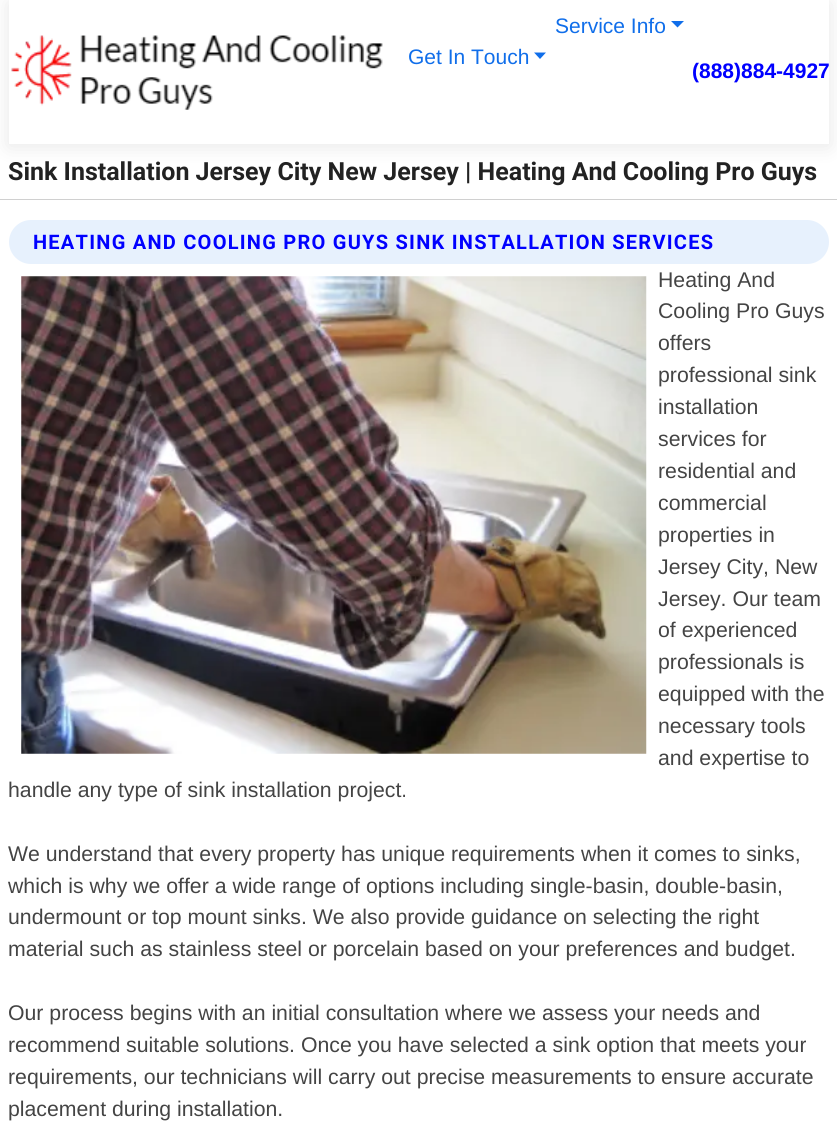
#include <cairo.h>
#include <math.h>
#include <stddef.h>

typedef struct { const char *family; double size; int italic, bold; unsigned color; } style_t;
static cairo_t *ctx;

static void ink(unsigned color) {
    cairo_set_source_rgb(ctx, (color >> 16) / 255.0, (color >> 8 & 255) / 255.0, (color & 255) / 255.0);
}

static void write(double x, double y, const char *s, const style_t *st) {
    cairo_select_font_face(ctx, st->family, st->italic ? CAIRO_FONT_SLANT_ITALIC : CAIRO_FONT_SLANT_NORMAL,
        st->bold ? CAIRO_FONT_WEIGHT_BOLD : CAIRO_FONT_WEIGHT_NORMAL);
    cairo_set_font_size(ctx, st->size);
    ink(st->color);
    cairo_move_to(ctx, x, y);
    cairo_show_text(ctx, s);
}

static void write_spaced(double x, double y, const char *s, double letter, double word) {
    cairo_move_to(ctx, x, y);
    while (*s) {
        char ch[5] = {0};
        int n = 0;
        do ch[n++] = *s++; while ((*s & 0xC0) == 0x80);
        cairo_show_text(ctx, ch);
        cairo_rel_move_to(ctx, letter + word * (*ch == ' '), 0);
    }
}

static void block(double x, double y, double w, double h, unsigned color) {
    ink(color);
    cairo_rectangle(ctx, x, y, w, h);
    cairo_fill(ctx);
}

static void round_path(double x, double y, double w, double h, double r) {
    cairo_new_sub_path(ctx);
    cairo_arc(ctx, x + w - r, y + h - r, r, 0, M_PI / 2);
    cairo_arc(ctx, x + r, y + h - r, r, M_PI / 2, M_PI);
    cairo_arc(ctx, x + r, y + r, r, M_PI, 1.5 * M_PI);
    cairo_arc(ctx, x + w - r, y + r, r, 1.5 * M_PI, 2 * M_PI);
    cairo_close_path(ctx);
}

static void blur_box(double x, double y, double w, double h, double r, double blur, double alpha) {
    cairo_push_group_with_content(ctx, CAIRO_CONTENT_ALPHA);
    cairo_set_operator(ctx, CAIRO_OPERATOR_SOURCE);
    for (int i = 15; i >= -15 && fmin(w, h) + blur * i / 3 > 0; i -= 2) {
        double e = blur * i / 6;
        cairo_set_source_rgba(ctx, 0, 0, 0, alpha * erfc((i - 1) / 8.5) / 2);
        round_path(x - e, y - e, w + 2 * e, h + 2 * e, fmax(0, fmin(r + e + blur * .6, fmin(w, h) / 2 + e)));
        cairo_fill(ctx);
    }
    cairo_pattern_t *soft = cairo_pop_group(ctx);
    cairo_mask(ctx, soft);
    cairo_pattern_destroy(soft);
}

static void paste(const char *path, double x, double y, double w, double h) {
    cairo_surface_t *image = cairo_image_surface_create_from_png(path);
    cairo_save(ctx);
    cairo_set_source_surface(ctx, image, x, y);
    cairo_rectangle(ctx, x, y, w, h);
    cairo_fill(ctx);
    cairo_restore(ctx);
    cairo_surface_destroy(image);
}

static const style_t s1 = {"Liberation Sans", 21, 0, 0, 0x106eea};
static const style_t s2 = {"Liberation Sans", 21, 0, 1, 0x0000ff};
static const style_t s3 = {"Roboto", 25, 0, 1, 0x222222};
static const style_t s4 = {"Liberation Sans", 21.25, 0, 0, 0x444444};

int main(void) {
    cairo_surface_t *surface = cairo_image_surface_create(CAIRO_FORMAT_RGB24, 837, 1139);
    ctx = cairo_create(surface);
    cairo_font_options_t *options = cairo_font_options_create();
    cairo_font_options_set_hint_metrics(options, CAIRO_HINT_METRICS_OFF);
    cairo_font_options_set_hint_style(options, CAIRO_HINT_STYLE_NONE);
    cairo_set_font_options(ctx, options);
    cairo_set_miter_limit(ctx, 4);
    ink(0xffffff);
    cairo_paint(ctx);
    ink(0x000000);
    blur_box(9, 3, 820, 143, 0, 9.5, 0.1);
    block(9, 0, 820, 144, 0xffffff);
    paste("pic1.png", 11, 35, 372, 75);
    write(555, 33, "Service Info", &s1);
    cairo_new_path(ctx);
    cairo_move_to(ctx, 671, 21);
    cairo_line_to(ctx, 684, 21);
    cairo_line_to(ctx, 677.5, 27.5);
    cairo_close_path(ctx);
    cairo_fill(ctx);
    write(408, 64, "Get In Touch", &s1);
    cairo_new_path(ctx);
    cairo_move_to(ctx, 534, 52.5);
    cairo_line_to(ctx, 546, 52.5);
    cairo_line_to(ctx, 540, 59);
    cairo_close_path(ctx);
    cairo_fill(ctx);
    write(692, 78, "(888)884-4927", &s2);
    write(8, 180, "Sink Installation Jersey City New Jersey | Heating And Cooling Pro Guys", &s3);
    block(0, 199, 837, 1, 0xd0d0d0);
    ink(0xe7f1fd);
    round_path(9, 220, 820, 44, 22);
    cairo_fill(ctx);
    cairo_set_font_size(ctx, 20);
    ink(0x0000ff);
    write_spaced(33, 249, "HEATING AND COOLING PRO GUYS SINK INSTALLATION SERVICES", 1.25, 0);
    write(658, 287, "Heating And", &s4);
    write(658, 318, "Cooling Pro Guys", &s4);
    write(658, 350, "offers", &s4);
    write(658, 382, "professional sink", &s4);
    write(658, 414, "installation", &s4);
    write(658, 446, "services for", &s4);
    write(658, 478, "residential and", &s4);
    write(658, 510, "commercial", &s4);
    write(658, 542, "properties in", &s4);
    write(658, 574, "Jersey City, New", &s4);
    write(658, 606, "Jersey. Our team", &s4);
    write(658, 637, "of experienced", &s4);
    write(658, 669, "professionals is", &s4);
    write(658, 701, "equipped with the", &s4);
    write(658, 733, "necessary tools", &s4);
    write(658, 765, "and expertise to", &s4);
    write(8, 797, "handle any type of sink installation project.", &s4);
    write(8, 861, "We understand that every property has unique requirements when it comes to sinks,", &s4);
    write(8, 893, "which is why we offer a wide range of options including single-basin, double-basin,", &s4);
    write(8, 924, "undermount or top mount sinks. We also provide guidance on selecting the right", &s4);
    write(8, 956, "material such as stainless steel or porcelain based on your preferences and budget.", &s4);
    write(8, 1020, "Our process begins with an initial consultation where we assess your needs and", &s4);
    write(8, 1052, "recommend suitable solutions. Once you have selected a sink option that meets your", &s4);
    write(8, 1084, "requirements, our technicians will carry out precise measurements to ensure accurate", &s4);
    write(8, 1116, "placement during installation.", &s4);
    paste("pic2.png", 21, 276, 626, 478);
    cairo_surface_write_to_png(surface, "screenshot.png");
    cairo_font_options_destroy(options);
    cairo_destroy(ctx);
    cairo_surface_destroy(surface);
    return 0;
}
